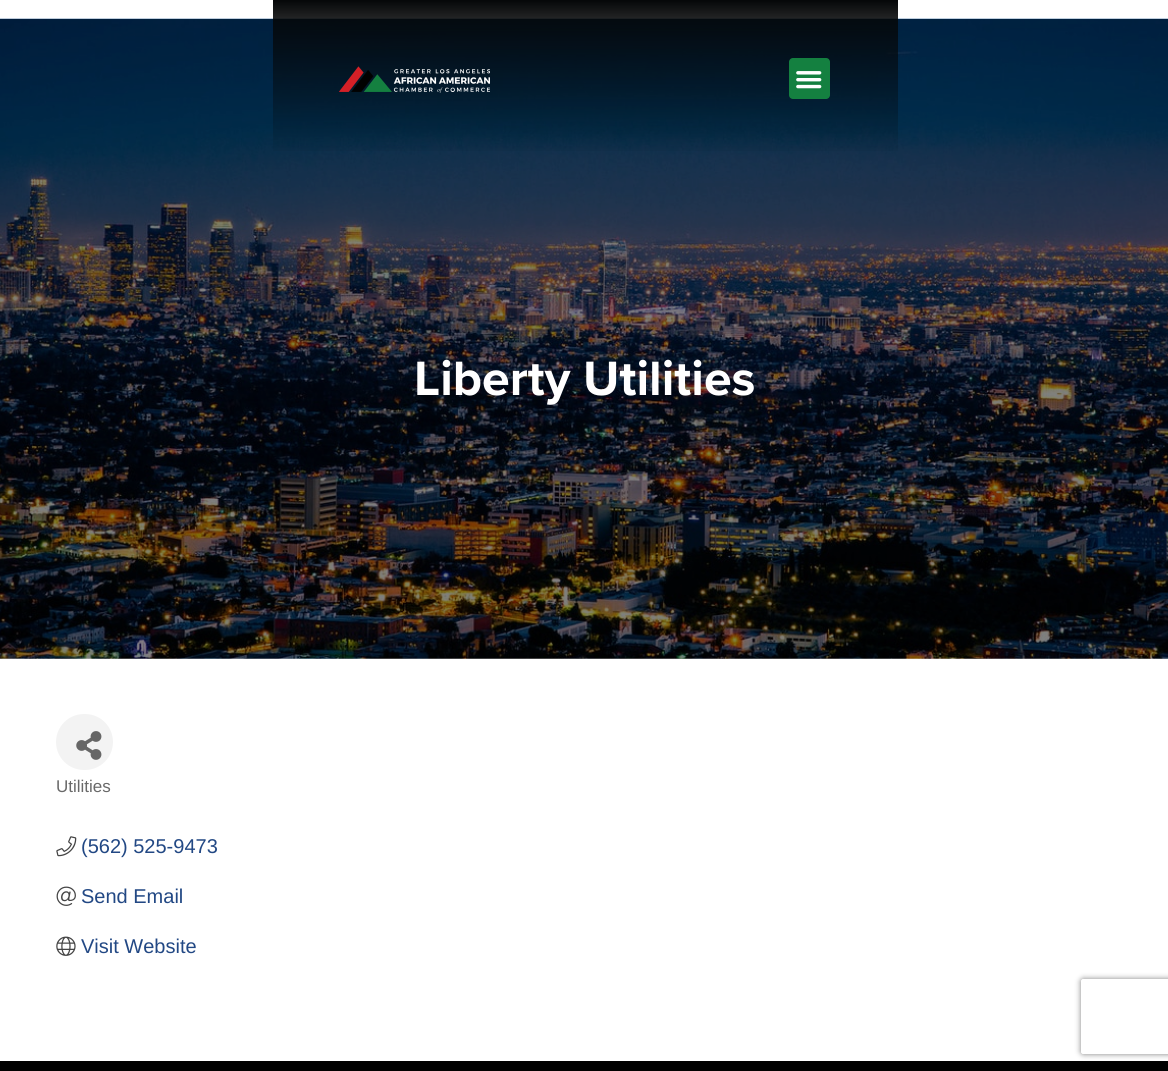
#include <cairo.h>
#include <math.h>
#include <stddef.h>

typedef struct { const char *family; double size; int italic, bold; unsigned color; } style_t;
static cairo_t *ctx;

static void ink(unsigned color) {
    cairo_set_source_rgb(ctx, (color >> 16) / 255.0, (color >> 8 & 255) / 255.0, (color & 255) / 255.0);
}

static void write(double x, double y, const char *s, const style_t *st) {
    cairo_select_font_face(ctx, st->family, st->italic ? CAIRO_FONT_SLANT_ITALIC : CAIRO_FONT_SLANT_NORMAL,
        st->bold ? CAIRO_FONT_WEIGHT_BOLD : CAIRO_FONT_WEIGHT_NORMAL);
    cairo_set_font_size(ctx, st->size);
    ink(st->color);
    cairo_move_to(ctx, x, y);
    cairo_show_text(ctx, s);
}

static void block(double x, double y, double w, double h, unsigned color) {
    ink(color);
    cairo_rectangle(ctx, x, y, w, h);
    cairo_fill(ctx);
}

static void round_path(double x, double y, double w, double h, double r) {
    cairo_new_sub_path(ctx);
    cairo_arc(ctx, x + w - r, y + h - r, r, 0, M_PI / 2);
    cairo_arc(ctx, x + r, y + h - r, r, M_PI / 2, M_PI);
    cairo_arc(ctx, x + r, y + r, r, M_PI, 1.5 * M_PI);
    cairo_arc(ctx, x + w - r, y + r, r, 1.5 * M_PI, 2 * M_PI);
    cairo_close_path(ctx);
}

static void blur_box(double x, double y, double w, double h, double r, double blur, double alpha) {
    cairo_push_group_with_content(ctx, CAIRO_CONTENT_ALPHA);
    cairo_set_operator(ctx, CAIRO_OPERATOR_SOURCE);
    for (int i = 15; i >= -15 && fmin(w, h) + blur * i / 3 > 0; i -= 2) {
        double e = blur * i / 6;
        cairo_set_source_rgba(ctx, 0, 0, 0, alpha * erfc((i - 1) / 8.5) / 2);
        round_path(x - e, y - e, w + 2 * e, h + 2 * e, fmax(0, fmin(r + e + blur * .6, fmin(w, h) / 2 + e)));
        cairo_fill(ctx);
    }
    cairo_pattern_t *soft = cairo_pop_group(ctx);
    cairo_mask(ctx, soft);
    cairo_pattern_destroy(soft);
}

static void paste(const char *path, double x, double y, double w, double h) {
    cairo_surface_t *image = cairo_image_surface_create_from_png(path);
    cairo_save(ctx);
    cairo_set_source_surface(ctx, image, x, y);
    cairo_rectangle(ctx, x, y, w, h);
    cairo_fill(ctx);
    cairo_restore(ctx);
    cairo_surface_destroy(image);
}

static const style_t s1 = {"Proxima Nova", 50, 0, 1, 0xffffff};
static const style_t s2 = {"Liberation Sans", 17, 0, 0, 0x696969};
static const style_t s3 = {"Liberation Sans", 20, 0, 0, 0x224884};

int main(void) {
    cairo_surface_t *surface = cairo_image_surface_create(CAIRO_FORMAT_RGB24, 1168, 1071);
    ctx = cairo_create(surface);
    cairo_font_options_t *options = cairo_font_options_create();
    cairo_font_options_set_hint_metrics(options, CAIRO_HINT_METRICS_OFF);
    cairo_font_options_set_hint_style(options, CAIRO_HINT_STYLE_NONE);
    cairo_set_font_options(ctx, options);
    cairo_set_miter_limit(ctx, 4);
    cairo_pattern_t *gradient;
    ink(0xffffff);
    cairo_paint(ctx);
    paste("pic3.png", 0, 18, 1168, 641);
    gradient = cairo_pattern_create_linear(585, 0, 585, 156);
    cairo_pattern_add_color_stop_rgba(gradient, 0, 0.02, 0.027, 0.031, 1);
    cairo_pattern_add_color_stop_rgba(gradient, 1, 0.02, 0.027, 0.031, 0);
    cairo_set_source(ctx, gradient);
    cairo_pattern_destroy(gradient);
    cairo_rectangle(ctx, 273, 0, 625, 151);
    cairo_fill(ctx);
    paste("pic1.png", 339, 66, 151, 27);
    ink(0x148040);
    round_path(789, 58, 41, 41, 4);
    cairo_fill(ctx);
    paste("pic2.png", 796, 71, 26, 18);
    write(414, 395, "Liberty Utilities", &s1);
    ink(0xf3f3f3);
    round_path(56, 714, 57, 56, 28);
    cairo_fill(ctx);
    paste("pic4.png", 76, 731, 26, 29);
    write(56, 792, "Utilities", &s2);
    paste("pic5.png", 56, 836, 21, 21);
    write(81, 853, "(562) 525-9473", &s3);
    paste("pic6.png", 56, 886, 20, 20);
    write(81, 903, "Send Email", &s3);
    paste("pic7.png", 56, 936, 20, 20);
    write(81, 953, "Visit Website", &s3);
    block(0, 1061, 1168, 10, 0x010101);
    cairo_save(ctx);
    cairo_set_fill_rule(ctx, CAIRO_FILL_RULE_EVEN_ODD);
    cairo_new_path(ctx);
    cairo_move_to(ctx, 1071, 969);
    cairo_line_to(ctx, 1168, 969);
    cairo_line_to(ctx, 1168, 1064);
    cairo_line_to(ctx, 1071, 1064);
    cairo_close_path(ctx);
    cairo_move_to(ctx, 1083.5, 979);
    cairo_line_to(ctx, 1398.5, 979);
    cairo_curve_to(ctx, 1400, 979, 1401, 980, 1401, 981.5);
    cairo_line_to(ctx, 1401, 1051.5);
    cairo_curve_to(ctx, 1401, 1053, 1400, 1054, 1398.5, 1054);
    cairo_line_to(ctx, 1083.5, 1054);
    cairo_curve_to(ctx, 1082, 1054, 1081, 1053, 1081, 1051.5);
    cairo_line_to(ctx, 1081, 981.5);
    cairo_curve_to(ctx, 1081, 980, 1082, 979, 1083.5, 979);
    cairo_close_path(ctx);
    cairo_clip(ctx);
    ink(0x808080);
    blur_box(1081, 979, 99, 75, 2.5, 3, 1);
    cairo_restore(ctx);
    cairo_surface_write_to_png(surface, "screenshot.png");
    cairo_font_options_destroy(options);
    cairo_destroy(ctx);
    cairo_surface_destroy(surface);
    return 0;
}
